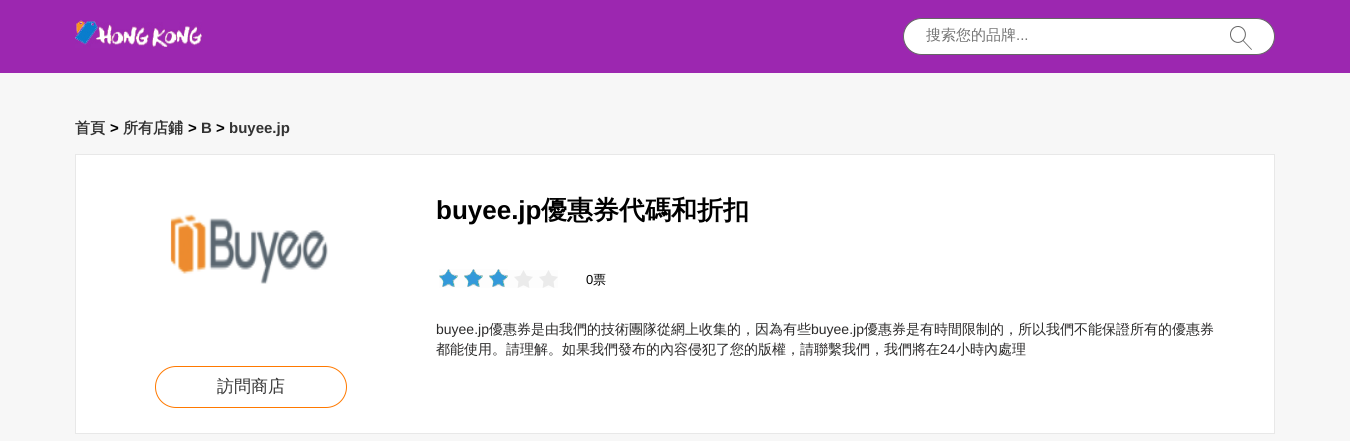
#include <cairo.h>
#include <math.h>
#include <stddef.h>

typedef struct { const char *family; double size; int italic, bold; unsigned color; } style_t;
static cairo_t *ctx;

static void ink(unsigned color) {
    cairo_set_source_rgb(ctx, (color >> 16) / 255.0, (color >> 8 & 255) / 255.0, (color & 255) / 255.0);
}

static void write(double x, double y, const char *s, const style_t *st) {
    cairo_select_font_face(ctx, st->family, st->italic ? CAIRO_FONT_SLANT_ITALIC : CAIRO_FONT_SLANT_NORMAL,
        st->bold ? CAIRO_FONT_WEIGHT_BOLD : CAIRO_FONT_WEIGHT_NORMAL);
    cairo_set_font_size(ctx, st->size);
    ink(st->color);
    cairo_move_to(ctx, x, y);
    cairo_show_text(ctx, s);
}

static void block(double x, double y, double w, double h, unsigned color) {
    ink(color);
    cairo_rectangle(ctx, x, y, w, h);
    cairo_fill(ctx);
}

static void round_path(double x, double y, double w, double h, double r) {
    cairo_new_sub_path(ctx);
    cairo_arc(ctx, x + w - r, y + h - r, r, 0, M_PI / 2);
    cairo_arc(ctx, x + r, y + h - r, r, M_PI / 2, M_PI);
    cairo_arc(ctx, x + r, y + r, r, M_PI, 1.5 * M_PI);
    cairo_arc(ctx, x + w - r, y + r, r, 1.5 * M_PI, 2 * M_PI);
    cairo_close_path(ctx);
}

static void paste(const char *path, double x, double y, double w, double h) {
    cairo_surface_t *image = cairo_image_surface_create_from_png(path);
    cairo_save(ctx);
    cairo_set_source_surface(ctx, image, x, y);
    cairo_rectangle(ctx, x, y, w, h);
    cairo_fill(ctx);
    cairo_restore(ctx);
    cairo_surface_destroy(image);
}

static const style_t s1 = {"WenQuanYi Zen Hei Medium", 15, 0, 0, 0x757575};
static const style_t s2 = {"Liberation Sans", 15, 0, 0, 0x757575};
static const style_t s3 = {"WenQuanYi Zen Hei", 15, 0, 1, 0x333333};
static const style_t s4 = {"Liberation Sans", 15, 0, 1, 0x000000};
static const style_t s5 = {"Liberation Sans", 15, 0, 1, 0x333333};
static const style_t s6 = {"Liberation Sans", 26, 0, 1, 0x000000};
static const style_t s7 = {"WenQuanYi Zen Hei", 26, 0, 1, 0x000000};
static const style_t s8 = {"Liberation Sans", 13, 0, 0, 0x000000};
static const style_t s9 = {"WenQuanYi Zen Hei Medium", 13, 0, 0, 0x000000};
static const style_t s10 = {"Liberation Sans", 14, 0, 0, 0x2b2a2a};
static const style_t s11 = {"WenQuanYi Zen Hei Medium", 14, 0, 0, 0x2b2a2a};
static const style_t s12 = {"WenQuanYi Zen Hei Medium", 17, 0, 0, 0x333333};

int main(void) {
    cairo_surface_t *surface = cairo_image_surface_create(CAIRO_FORMAT_RGB24, 1350, 441);
    ctx = cairo_create(surface);
    cairo_font_options_t *options = cairo_font_options_create();
    cairo_font_options_set_hint_metrics(options, CAIRO_HINT_METRICS_OFF);
    cairo_font_options_set_hint_style(options, CAIRO_HINT_STYLE_NONE);
    cairo_set_font_options(ctx, options);
    cairo_set_miter_limit(ctx, 4);
    ink(0xf7f7f7);
    cairo_paint(ctx);
    block(0, 0, 1350, 73, 0x9c27b0);
    paste("pic1.png", 75, 20, 127, 28);
    ink(0xffffff);
    round_path(903.5, 18.5, 371, 36, 18);
    cairo_fill_preserve(ctx);
    ink(0x666666);
    cairo_set_line_width(ctx, 1);
    cairo_stroke(ctx);
    write(926, 40, "搜索您的品牌", &s1);
    write(1016, 40, "...", &s2);
    paste("pic2.png", 1230, 26, 22, 24);
    write(75, 133, "首頁", &s3);
    write(110, 133, ">", &s4);
    write(123, 133, "所有店鋪", &s3);
    write(188, 133, ">", &s4);
    write(201, 133, "B", &s5);
    write(216, 133, ">", &s4);
    write(229, 133, "buyee.jp", &s5);
    ink(0xffffff);
    cairo_rectangle(ctx, 75.5, 154.5, 1199, 279);
    cairo_fill_preserve(ctx);
    ink(0xe8e8e8);
    cairo_stroke(ctx);
    write(436, 219, "buyee.jp", &s6);
    write(541, 219, "優惠券代碼和折扣", &s7);
    paste("pic3.png", 508, 270, 50, 18);
    paste("pic4.png", 439, 269, 69, 19);
    write(586, 284, "0", &s8);
    write(593, 284, "票", &s9);
    write(436, 334, "buyee.jp", &s10);
    write(489, 334, "優惠券是由我們的技術團隊從網上收集的，因為有些", &s11);
    write(811, 334, "buyee.jp", &s10);
    write(864, 334, "優惠券是有時間限制的，所以我們不能保證所有的優惠券", &s11);
    write(436, 354, "都能使用。請理解。如果我們發布的內容侵犯了您的版權，請聯繫我們，我們將在", &s11);
    write(940, 354, "24", &s10);
    write(956, 354, "小時內處理", &s11);
    paste("pic5.png", 170, 214, 158, 70);
    round_path(155.5, 366.5, 191, 41, 20.5);
    ink(0xff7900);
    cairo_stroke(ctx);
    write(217, 392, "訪問商店", &s12);
    cairo_surface_write_to_png(surface, "screenshot.png");
    cairo_font_options_destroy(options);
    cairo_destroy(ctx);
    cairo_surface_destroy(surface);
    return 0;
}
